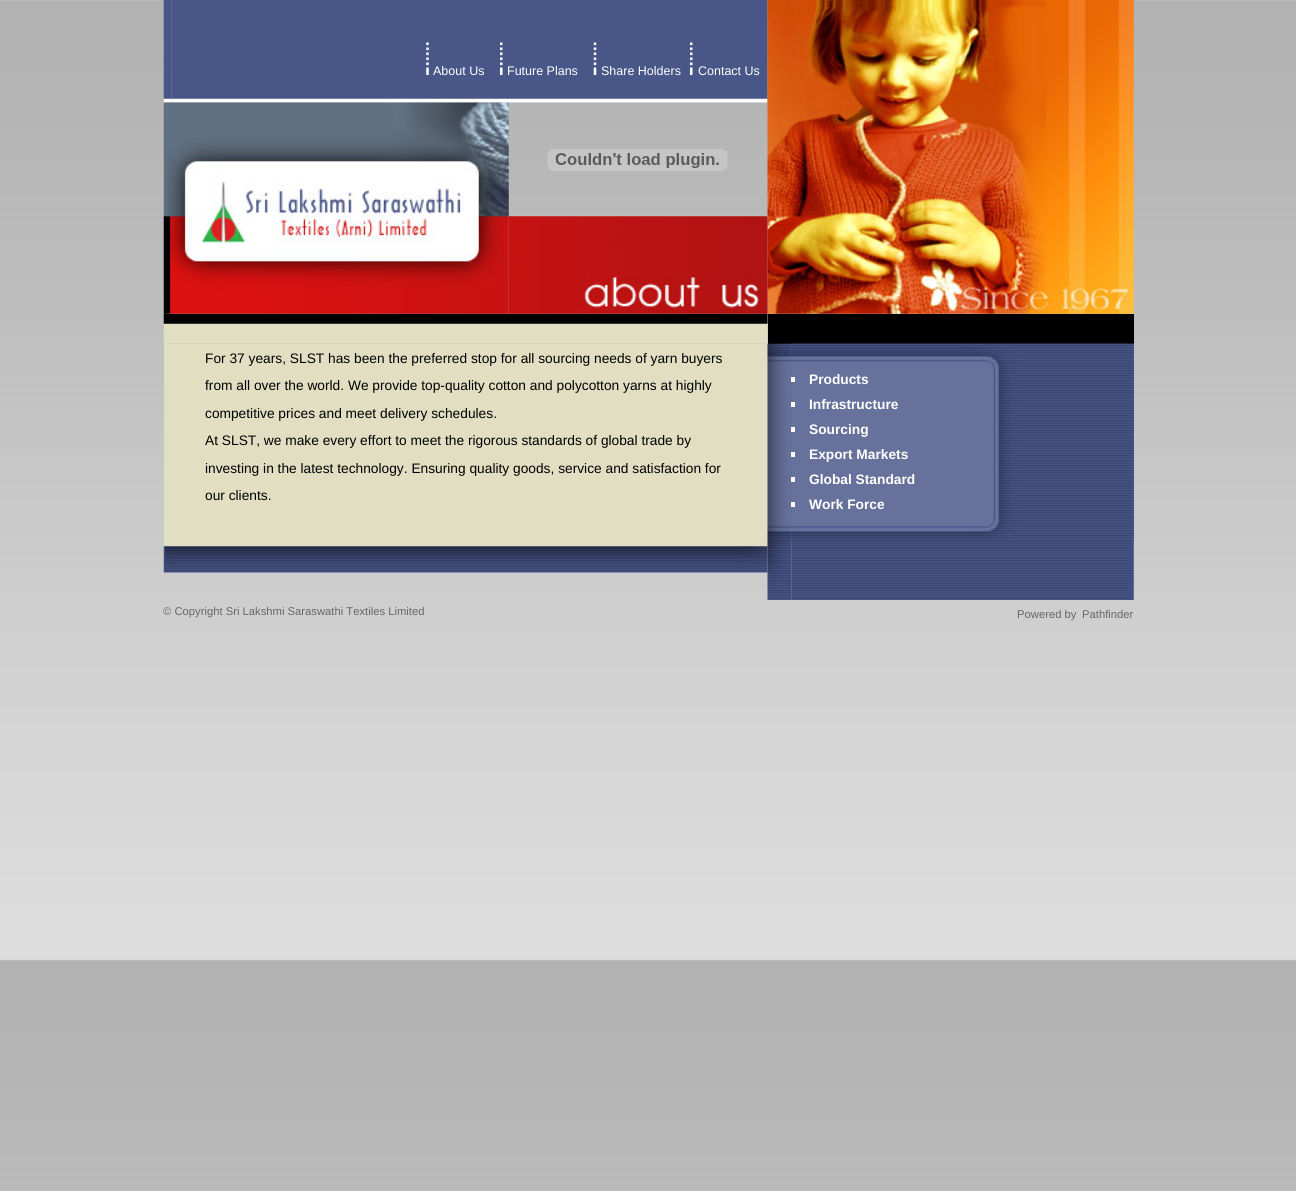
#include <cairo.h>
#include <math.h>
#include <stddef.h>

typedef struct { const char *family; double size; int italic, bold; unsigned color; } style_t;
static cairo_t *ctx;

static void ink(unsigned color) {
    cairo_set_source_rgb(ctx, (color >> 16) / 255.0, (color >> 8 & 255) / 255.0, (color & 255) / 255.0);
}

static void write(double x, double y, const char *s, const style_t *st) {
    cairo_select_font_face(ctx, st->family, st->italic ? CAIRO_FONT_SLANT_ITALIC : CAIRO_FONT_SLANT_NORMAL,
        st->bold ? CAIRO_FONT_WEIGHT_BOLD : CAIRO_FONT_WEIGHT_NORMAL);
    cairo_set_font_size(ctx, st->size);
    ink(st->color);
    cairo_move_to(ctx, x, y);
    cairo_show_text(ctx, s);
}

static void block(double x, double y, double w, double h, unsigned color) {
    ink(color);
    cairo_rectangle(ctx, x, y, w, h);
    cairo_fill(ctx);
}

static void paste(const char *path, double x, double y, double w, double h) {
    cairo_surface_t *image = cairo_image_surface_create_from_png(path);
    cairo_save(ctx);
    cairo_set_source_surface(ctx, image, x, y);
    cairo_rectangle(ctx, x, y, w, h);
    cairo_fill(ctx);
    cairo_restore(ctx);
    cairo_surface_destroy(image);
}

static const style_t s1 = {"Liberation Sans", 12.5, 0, 0, 0xffffff};
static const style_t s2 = {"Liberation Sans", 13.75, 0, 0, 0x000000};
static const style_t s3 = {"Liberation Sans", 13.75, 0, 1, 0xffffff};
static const style_t s4 = {"Liberation Sans", 11.25, 0, 0, 0x666666};

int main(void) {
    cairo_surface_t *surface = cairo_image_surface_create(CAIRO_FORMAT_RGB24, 1296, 1191);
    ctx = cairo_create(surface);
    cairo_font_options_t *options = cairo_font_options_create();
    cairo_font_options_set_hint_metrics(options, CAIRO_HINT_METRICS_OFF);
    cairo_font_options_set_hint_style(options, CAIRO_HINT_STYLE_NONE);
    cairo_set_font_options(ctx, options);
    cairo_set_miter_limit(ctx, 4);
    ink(0xffffff);
    cairo_paint(ctx);
    paste("pic1.png", 0, 0, 1296, 1191);
    paste("pic2.png", 163, 0, 9, 103);
    paste("pic3.png", 171, 0, 597, 103);
    paste("pic4.png", 426, 42, 3, 33);
    write(433, 75, "About Us", &s1);
    paste("pic5.png", 500, 42, 3, 33);
    write(507, 75, "Future Plans", &s1);
    paste("pic6.png", 593, 42, 4, 33);
    write(601, 75, "Share Holders", &s1);
    paste("pic5.png", 690, 42, 3, 33);
    write(698, 75, "Contact Us", &s1);
    paste("pic11.png", 163, 313, 605, 31);
    paste("pic7.png", 767, 0, 367, 314);
    paste("pic8.png", 163, 102, 346, 212);
    paste("pic9.png", 547, 149, 181, 22);
    paste("pic10.png", 508, 216, 260, 98);
    block(768, 314, 366, 30, 0x000000);
    block(164, 344, 604, 165, 0xe1dec2);
    write(205, 363, "For 37 years, SLST has been the preferred stop for all sourcing needs of yarn buyers", &s2);
    write(205, 390, "from all over the world. We provide top-quality cotton and polycotton yarns at highly", &s2);
    write(205, 418, "competitive prices and meet delivery schedules.", &s2);
    write(205, 445, "At SLST, we make every effort to meet the rigorous standards of global trade by", &s2);
    write(205, 473, "investing in the latest technology. Ensuring quality goods, service and satisfaction for", &s2);
    write(205, 500, "our clients.", &s2);
    block(164, 509, 604, 37, 0xe1dec2);
    paste("pic12.png", 163, 546, 605, 27);
    paste("pic14.png", 791, 343, 343, 257);
    paste("pic15.png", 791, 343, 343, 199);
    paste("pic13.png", 767, 343, 25, 257);
    block(791, 377, 4, 5, 0xffffff);
    write(809, 384, "Products", &s3);
    block(791, 402, 4, 5, 0xffffff);
    write(809, 409, "Infrastructure", &s3);
    block(791, 427, 4, 5, 0xffffff);
    write(809, 434, "Sourcing", &s3);
    block(791, 452, 4, 5, 0xffffff);
    write(809, 459, "Export Markets", &s3);
    block(791, 477, 4, 5, 0xffffff);
    write(809, 484, "Global Standard", &s3);
    block(791, 502, 4, 5, 0xffffff);
    write(809, 509, "Work Force", &s3);
    write(163, 615, "© Copyright Sri Lakshmi Saraswathi Textiles Limited", &s4);
    write(1017, 618, "Powered by", &s4);
    write(1082, 618, "Pathfinder", &s4);
    cairo_surface_write_to_png(surface, "screenshot.png");
    cairo_font_options_destroy(options);
    cairo_destroy(ctx);
    cairo_surface_destroy(surface);
    return 0;
}
